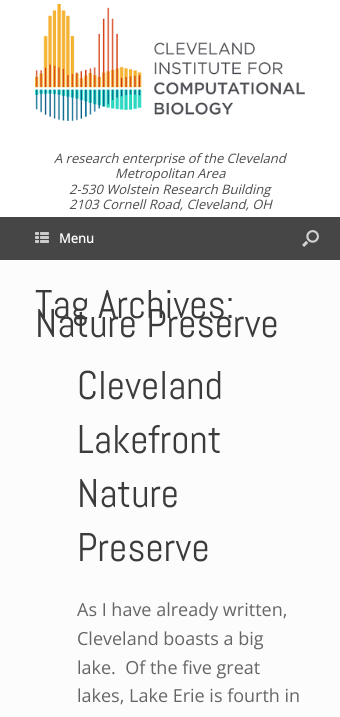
#include <cairo.h>
#include <math.h>
#include <stddef.h>

typedef struct { const char *family; double size; int italic, bold; unsigned color; } style_t;
static cairo_t *ctx;

static void ink(unsigned color) {
    cairo_set_source_rgb(ctx, (color >> 16) / 255.0, (color >> 8 & 255) / 255.0, (color & 255) / 255.0);
}

static void write(double x, double y, const char *s, const style_t *st) {
    cairo_select_font_face(ctx, st->family, st->italic ? CAIRO_FONT_SLANT_ITALIC : CAIRO_FONT_SLANT_NORMAL,
        st->bold ? CAIRO_FONT_WEIGHT_BOLD : CAIRO_FONT_WEIGHT_NORMAL);
    cairo_set_font_size(ctx, st->size);
    ink(st->color);
    cairo_move_to(ctx, x, y);
    cairo_show_text(ctx, s);
}

static void block(double x, double y, double w, double h, unsigned color) {
    ink(color);
    cairo_rectangle(ctx, x, y, w, h);
    cairo_fill(ctx);
}

static void paste(const char *path, double x, double y, double w, double h) {
    cairo_surface_t *image = cairo_image_surface_create_from_png(path);
    cairo_save(ctx);
    cairo_set_source_surface(ctx, image, x, y);
    cairo_rectangle(ctx, x, y, w, h);
    cairo_fill(ctx);
    cairo_restore(ctx);
    cairo_surface_destroy(image);
}

static const style_t s1 = {"Open Sans", 13, 1, 0, 0x4b4b4b};
static const style_t s2 = {"Open Sans", 13, 0, 1, 0xffffff};
static const style_t s3 = {"Abel", 40, 0, 0, 0x3b3b3b};
static const style_t s4 = {"Open Sans", 18, 0, 0, 0x666666};

int main(void) {
    cairo_surface_t *surface = cairo_image_surface_create(CAIRO_FORMAT_RGB24, 340, 717);
    ctx = cairo_create(surface);
    cairo_font_options_t *options = cairo_font_options_create();
    cairo_font_options_set_hint_metrics(options, CAIRO_HINT_METRICS_OFF);
    cairo_font_options_set_hint_style(options, CAIRO_HINT_STYLE_NONE);
    cairo_set_font_options(ctx, options);
    cairo_set_miter_limit(ctx, 4);
    ink(0xffffff);
    cairo_paint(ctx);
    paste("pic1.png", 35, 4, 270, 117);
    write(54, 163, "A research enterprise of the Cleveland", &s1);
    write(115, 178, "Metropolitan Area", &s1);
    write(69, 194, "2-530 Wolstein Research Building", &s1);
    write(69, 209, "2103 Cornell Road, Cleveland, OH", &s1);
    block(0, 217, 340, 43, 0x464646);
    paste("pic2.png", 35, 232, 14, 11);
    write(59, 243, "Menu", &s2);
    paste("pic3.png", 302, 230, 17, 17);
    block(0, 260, 340, 457, 0xfcfcfc);
    write(35, 318, "Tag Archives:", &s3);
    write(35, 337, "Nature Preserve", &s3);
    write(77, 399, "Cleveland", &s3);
    write(77, 453, "Lakefront", &s3);
    write(77, 507, "Nature", &s3);
    write(77, 561, "Preserve", &s3);
    write(77, 616, "As I have already written,", &s4);
    write(77, 645, "Cleveland boasts a big", &s4);
    write(77, 674, "lake.  Of the five great", &s4);
    write(77, 702, "lakes, Lake Erie is fourth in", &s4);
    cairo_surface_write_to_png(surface, "screenshot.png");
    cairo_font_options_destroy(options);
    cairo_destroy(ctx);
    cairo_surface_destroy(surface);
    return 0;
}
